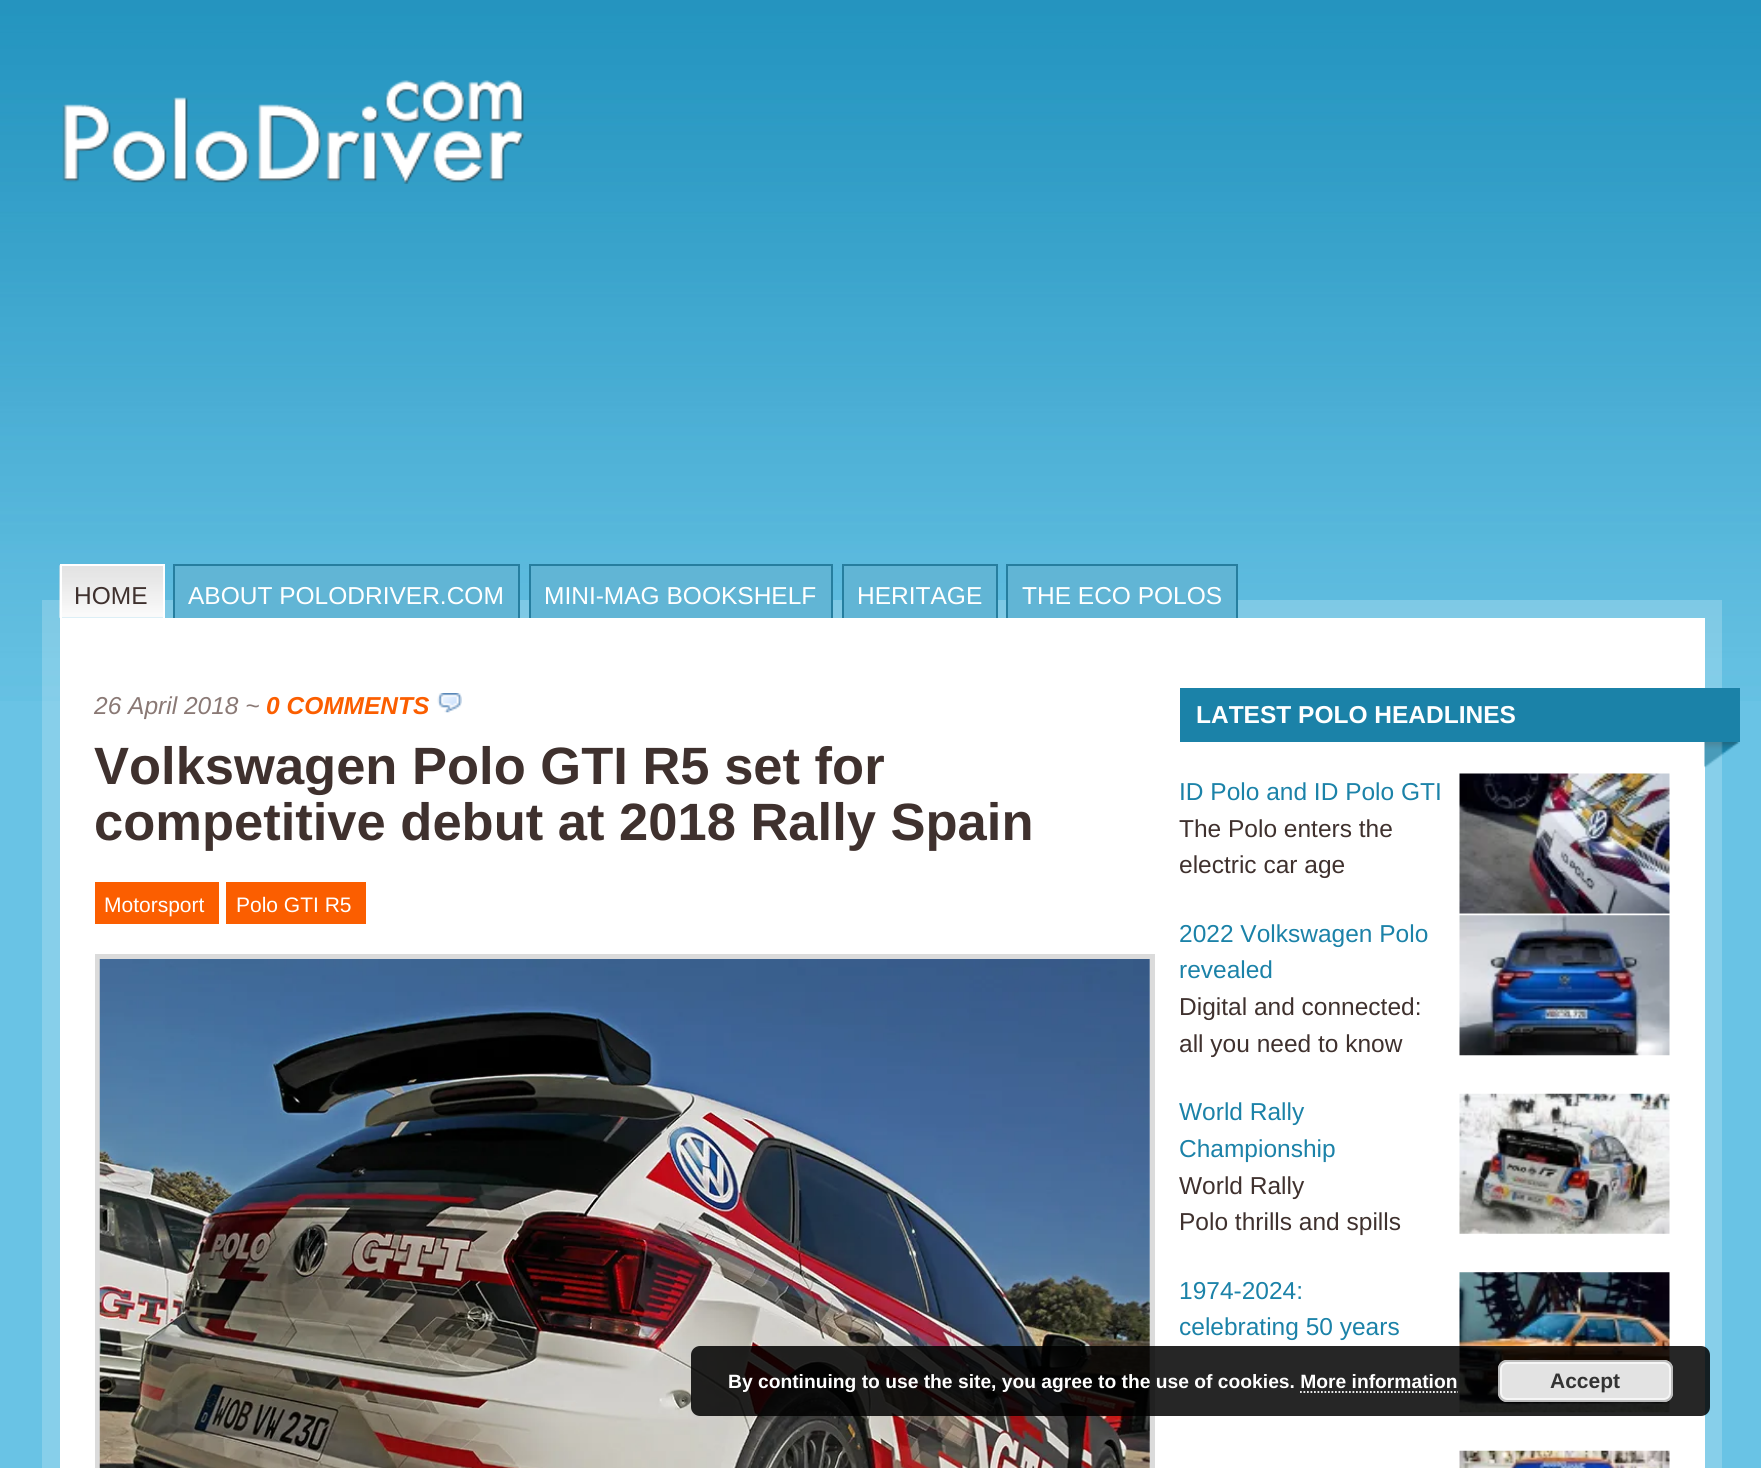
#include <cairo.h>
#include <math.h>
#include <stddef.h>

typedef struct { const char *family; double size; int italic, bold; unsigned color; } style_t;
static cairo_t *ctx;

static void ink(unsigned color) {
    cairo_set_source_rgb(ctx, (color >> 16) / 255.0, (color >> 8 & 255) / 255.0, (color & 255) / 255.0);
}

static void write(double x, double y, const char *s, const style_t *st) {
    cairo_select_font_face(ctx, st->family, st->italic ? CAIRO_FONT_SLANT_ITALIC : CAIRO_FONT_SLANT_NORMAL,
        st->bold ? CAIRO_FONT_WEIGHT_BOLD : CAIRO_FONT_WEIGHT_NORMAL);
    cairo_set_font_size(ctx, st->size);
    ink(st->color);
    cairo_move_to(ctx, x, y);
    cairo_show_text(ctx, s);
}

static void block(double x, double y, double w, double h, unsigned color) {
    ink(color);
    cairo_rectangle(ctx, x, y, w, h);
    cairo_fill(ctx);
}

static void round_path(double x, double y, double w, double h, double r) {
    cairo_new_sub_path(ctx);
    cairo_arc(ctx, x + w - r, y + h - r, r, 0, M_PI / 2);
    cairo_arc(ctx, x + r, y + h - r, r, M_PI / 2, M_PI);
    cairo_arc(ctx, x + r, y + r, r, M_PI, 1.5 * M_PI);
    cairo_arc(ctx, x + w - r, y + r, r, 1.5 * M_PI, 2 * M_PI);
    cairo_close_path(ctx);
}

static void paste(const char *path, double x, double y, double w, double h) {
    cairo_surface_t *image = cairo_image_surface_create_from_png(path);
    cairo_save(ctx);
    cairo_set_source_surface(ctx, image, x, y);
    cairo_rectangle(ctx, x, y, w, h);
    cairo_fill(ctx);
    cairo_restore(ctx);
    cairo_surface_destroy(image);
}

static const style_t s1 = {"Liberation Sans", 24.5, 0, 0, 0x3f312e};
static const style_t s2 = {"Liberation Sans", 24.5, 0, 0, 0xffffff};
static const style_t s3 = {"Liberation Sans", 24.5, 1, 0, 0x8a7975};
static const style_t s4 = {"Liberation Sans", 24.5, 1, 1, 0xfb5e00};
static const style_t s5 = {"Liberation Sans", 52.5, 0, 1, 0x3f312e};
static const style_t s6 = {"Liberation Sans", 21, 0, 0, 0xffffff};
static const style_t s7 = {"Liberation Sans", 24.5, 0, 1, 0xffffff};
static const style_t s8 = {"Liberation Sans", 24.5, 0, 0, 0x1b82a8};
static const style_t s9 = {"Liberation Sans", 19.25, 0, 1, 0xffffff};
static const style_t s10 = {"Liberation Sans", 21, 0, 1, 0x333333};

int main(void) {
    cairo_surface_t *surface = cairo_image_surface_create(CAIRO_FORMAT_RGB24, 1761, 1468);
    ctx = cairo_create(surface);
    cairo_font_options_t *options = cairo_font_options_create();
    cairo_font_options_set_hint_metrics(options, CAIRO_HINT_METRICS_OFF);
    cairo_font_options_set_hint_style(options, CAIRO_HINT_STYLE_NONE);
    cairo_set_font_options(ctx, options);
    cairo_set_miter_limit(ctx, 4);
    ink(0x69c3e5);
    cairo_paint(ctx);
    paste("pic1.png", 0, 0, 1761, 701);
    paste("pic2.png", 62, 80, 463, 104);
    cairo_set_source_rgba(ctx, 1, 1, 1, 0.2);
    cairo_rectangle(ctx, 42, 600, 1680, 868);
    cairo_fill(ctx);
    paste("pic3.png", 59, 565, 104, 53);
    block(60, 564, 105, 2, 0xffffff);
    block(163, 564, 2, 54, 0xffffff);
    block(60, 564, 2, 54, 0xffffff);
    write(74, 604, "HOME", &s1);
    block(175, 566, 343, 52, 0x61b5d5);
    block(173, 564, 347, 2, 0x267e9f);
    block(518, 564, 2, 54, 0x267e9f);
    block(173, 564, 2, 54, 0x267e9f);
    write(188, 604, "ABOUT POLODRIVER.COM", &s2);
    block(531, 566, 300, 52, 0x61b5d5);
    block(529, 564, 304, 2, 0x267e9f);
    block(831, 564, 2, 54, 0x267e9f);
    block(529, 564, 2, 54, 0x267e9f);
    write(544, 604, "MINI-MAG BOOKSHELF", &s2);
    block(844, 566, 152, 52, 0x61b5d5);
    block(842, 564, 156, 2, 0x267e9f);
    block(996, 564, 2, 54, 0x267e9f);
    block(842, 564, 2, 54, 0x267e9f);
    write(857, 604, "HERITAGE", &s2);
    block(1008, 566, 228, 52, 0x61b5d5);
    block(1006, 564, 231, 2, 0x267e9f);
    block(1236, 564, 2, 54, 0x267e9f);
    block(1006, 564, 2, 54, 0x267e9f);
    write(1022, 604, "THE ECO POLOS", &s2);
    block(60, 618, 1645, 850, 0xffffff);
    write(94, 714, "26 April 2018 ~", &s3);
    write(266, 714, "0 COMMENTS", &s4);
    paste("pic4.png", 437, 693, 25, 20);
    write(94, 784, "Volkswagen Polo GTI R5 set for", &s5);
    write(94, 840, "competitive debut at 2018 Rally Spain", &s5);
    block(95, 882, 124, 42, 0xfb5e00);
    write(104, 912, "Motorsport", &s6);
    block(226, 882, 140, 42, 0xfb5e00);
    write(236, 912, "Polo GTI R5", &s6);
    cairo_rectangle(ctx, 97.5, 956.5, 1055, 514);
    ink(0xdbdbdb);
    cairo_set_line_width(ctx, 5);
    cairo_stroke(ctx);
    paste("pic5.png", 99, 959, 1051, 509);
    block(1180, 688, 560, 54, 0x1b82a8);
    write(1196, 723, "LATEST POLO HEADLINES", &s7);
    paste("pic6.png", 1704, 742, 36, 26);
    write(1179, 800, "ID Polo and ID Polo GTI", &s8);
    write(1179, 837, "The Polo enters the", &s1);
    write(1179, 873, "electric car age", &s1);
    paste("pic7.png", 1459, 773, 211, 141);
    write(1179, 942, "2022 Volkswagen Polo", &s8);
    write(1179, 978, "revealed", &s8);
    write(1179, 1015, "Digital and connected:", &s1);
    write(1179, 1052, "all you need to know", &s1);
    paste("pic8.png", 1459, 915, 211, 141);
    write(1179, 1120, "World Rally", &s8);
    paste("pic9.png", 1459, 1093, 211, 141);
    write(1179, 1157, "Championship", &s8);
    write(1179, 1194, "World Rally", &s1);
    write(1179, 1230, "Polo thrills and spills", &s1);
    write(1179, 1299, "1974-2024:", &s8);
    paste("pic10.png", 1459, 1272, 211, 141);
    write(1179, 1335, "celebrating 50 years", &s8);
    paste("pic11.png", 1459, 1450, 211, 18);
    cairo_set_source_rgba(ctx, 0, 0, 0, 0.85);
    round_path(691, 1346, 1019, 70, 9);
    cairo_fill(ctx);
    write(728, 1388, "By continuing to use the site, you agree to the use of cookies. More information", &s9);
    ink(0xe3e3e3);
    round_path(1498, 1360, 175, 42, 9);
    cairo_fill(ctx);
    round_path(1501, 1363, 169, 36, 6);
    ink(0xf6f6f6);
    cairo_set_line_width(ctx, 2);
    cairo_stroke(ctx);
    round_path(1499, 1361, 173, 40, 8);
    ink(0xbbbbbb);
    cairo_stroke(ctx);
    write(1550, 1388, "Accept", &s10);
    cairo_new_path(ctx);
    cairo_move_to(ctx, 1300, 1392);
    cairo_line_to(ctx, 1458, 1392);
    ink(0xffffff);
    cairo_set_line_width(ctx, 1.8);
    cairo_set_dash(ctx, (double[]){1.75, 1.75}, 2, 0);
    cairo_stroke(ctx);
    cairo_surface_write_to_png(surface, "screenshot.png");
    cairo_font_options_destroy(options);
    cairo_destroy(ctx);
    cairo_surface_destroy(surface);
    return 0;
}
